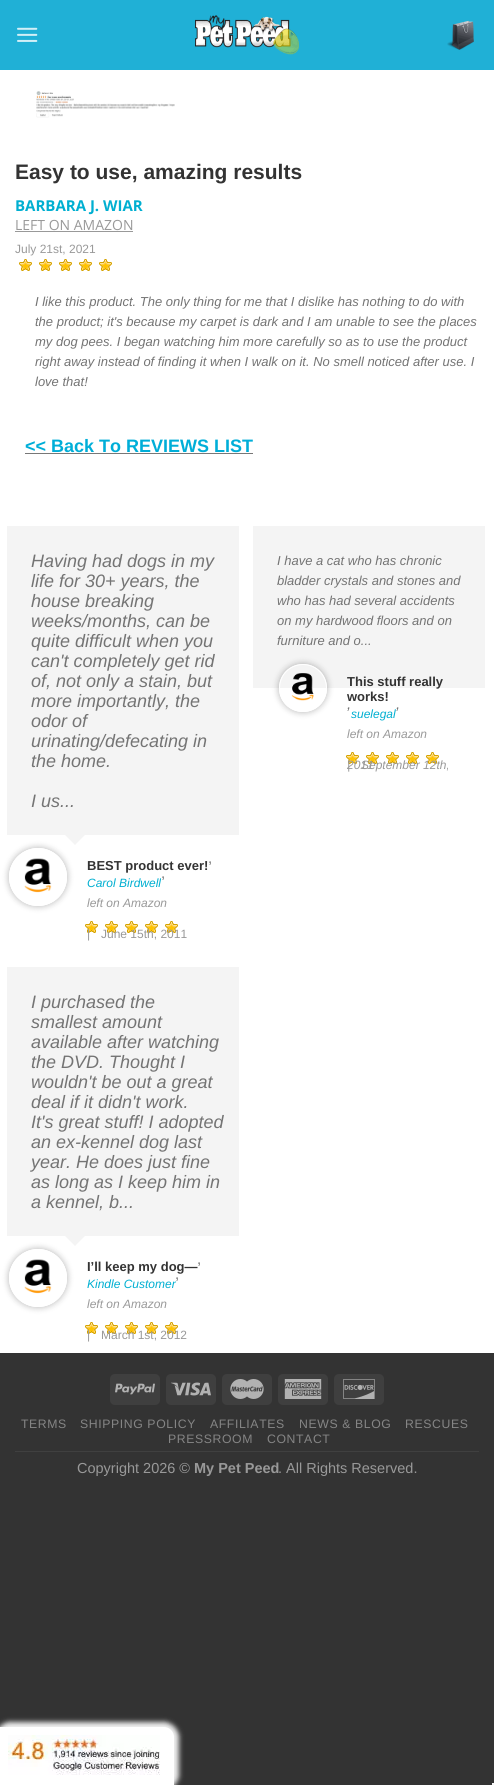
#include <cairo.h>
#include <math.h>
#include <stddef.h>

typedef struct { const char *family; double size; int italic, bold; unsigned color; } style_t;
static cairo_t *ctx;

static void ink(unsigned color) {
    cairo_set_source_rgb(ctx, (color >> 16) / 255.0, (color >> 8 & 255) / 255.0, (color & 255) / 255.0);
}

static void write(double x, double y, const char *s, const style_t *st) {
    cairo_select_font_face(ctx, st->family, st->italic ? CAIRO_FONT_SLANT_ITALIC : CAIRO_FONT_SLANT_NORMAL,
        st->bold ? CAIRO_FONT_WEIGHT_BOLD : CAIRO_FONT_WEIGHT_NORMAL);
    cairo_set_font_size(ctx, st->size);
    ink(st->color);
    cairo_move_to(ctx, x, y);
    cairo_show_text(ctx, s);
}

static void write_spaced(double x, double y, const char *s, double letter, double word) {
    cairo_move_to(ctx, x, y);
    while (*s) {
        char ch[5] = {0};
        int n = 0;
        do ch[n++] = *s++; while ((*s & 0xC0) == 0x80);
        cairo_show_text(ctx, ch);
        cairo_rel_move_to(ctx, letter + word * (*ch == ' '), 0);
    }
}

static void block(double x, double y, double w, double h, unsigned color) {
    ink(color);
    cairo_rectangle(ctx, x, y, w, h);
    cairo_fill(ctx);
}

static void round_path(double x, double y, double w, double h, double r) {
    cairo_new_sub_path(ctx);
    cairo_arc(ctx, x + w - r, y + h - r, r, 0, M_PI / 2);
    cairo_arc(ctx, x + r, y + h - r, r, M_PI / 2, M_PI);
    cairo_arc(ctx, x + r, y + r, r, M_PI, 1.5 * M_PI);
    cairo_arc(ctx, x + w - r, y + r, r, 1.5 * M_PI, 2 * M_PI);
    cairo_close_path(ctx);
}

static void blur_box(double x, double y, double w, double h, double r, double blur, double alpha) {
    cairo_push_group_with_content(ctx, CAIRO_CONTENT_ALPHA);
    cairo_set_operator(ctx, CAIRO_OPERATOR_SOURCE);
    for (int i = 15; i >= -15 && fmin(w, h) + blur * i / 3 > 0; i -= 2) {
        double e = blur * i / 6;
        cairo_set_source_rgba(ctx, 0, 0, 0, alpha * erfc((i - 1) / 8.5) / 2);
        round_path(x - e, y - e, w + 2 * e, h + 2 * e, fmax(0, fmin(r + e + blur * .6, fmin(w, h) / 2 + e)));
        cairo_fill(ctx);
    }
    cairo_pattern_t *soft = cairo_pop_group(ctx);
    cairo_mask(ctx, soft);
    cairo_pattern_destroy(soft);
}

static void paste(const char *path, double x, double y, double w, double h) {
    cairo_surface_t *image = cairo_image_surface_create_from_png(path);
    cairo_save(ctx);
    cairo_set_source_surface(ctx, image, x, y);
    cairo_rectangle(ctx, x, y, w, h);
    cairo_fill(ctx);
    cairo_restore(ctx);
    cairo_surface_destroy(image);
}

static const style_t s1 = {"Liberation Sans", 21, 0, 1, 0x333333};
static const style_t s2 = {"Open Sans", 15, 0, 1, 0x00afd1};
static const style_t s3 = {"Open Sans", 14, 0, 0, 0x999999};
static const style_t s4 = {"Liberation Sans", 12, 0, 0, 0x999999};
static const style_t s5 = {"Liberation Sans", 13, 1, 0, 0x747474};
static const style_t s6 = {"Liberation Sans", 18, 0, 1, 0x00aed8};
static const style_t s7 = {"Liberation Sans", 18, 1, 0, 0x747474};
static const style_t s8 = {"Liberation Sans", 13, 0, 1, 0x333333};
static const style_t s9 = {"Liberation Sans", 15, 0, 0, 0x747474};
static const style_t s10 = {"Liberation Sans", 12, 1, 0, 0x00afd1};
static const style_t s11 = {"Liberation Sans", 12, 1, 0, 0x999999};
static const style_t s12 = {"Liberation Sans", 15, 1, 0, 0x747474};
static const style_t s13 = {"Liberation Sans", 14.5, 0, 0, 0x999999};
static const style_t s14 = {"Liberation Sans", 14.5, 0, 1, 0x999999};

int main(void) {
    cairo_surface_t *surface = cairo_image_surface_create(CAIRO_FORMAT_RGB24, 494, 1785);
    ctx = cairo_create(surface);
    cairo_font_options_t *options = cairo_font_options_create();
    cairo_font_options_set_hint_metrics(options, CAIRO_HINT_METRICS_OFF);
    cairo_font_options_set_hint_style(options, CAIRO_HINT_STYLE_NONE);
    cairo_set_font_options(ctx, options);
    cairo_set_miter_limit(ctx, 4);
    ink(0x333333);
    cairo_paint(ctx);
    block(0, 70, 494, 1283, 0xffffff);
    block(0, 0, 494, 70, 0x20b0d6);
    paste("pic1.png", 17, 27, 21, 15);
    paste("pic2.png", 195, 15, 104, 40);
    paste("pic3.png", 447, 20, 27, 30);
    paste("pic4.png", 36, 91, 139, 27);
    write(15, 179, "Easy to use, amazing results", &s1);
    write(15, 211, "BARBARA J. WIAR", &s2);
    write(15, 230, "LEFT ON AMAZON", &s3);
    block(15, 231, 118, 1, 0x999999);
    write(15, 253, "July 21st, 2021", &s4);
    paste("pic5.png", 19, 259, 13, 12);
    paste("pic5.png", 39, 259, 13, 12);
    paste("pic5.png", 59, 259, 13, 12);
    paste("pic5.png", 79, 259, 13, 12);
    paste("pic5.png", 99, 259, 13, 12);
    write(35, 306, "I like this product. The only thing for me that I dislike has nothing to do with", &s5);
    write(35, 326, "the product; it's because my carpet is dark and I am unable to see the places", &s5);
    write(35, 346, "my dog pees. I began watching him more carefully so as to use the product", &s5);
    write(35, 366, "right away instead of finding it when I walk on it. No smell noticed after use. I", &s5);
    write(35, 386, "love that!", &s5);
    write(25, 452, "<< Back To REVIEWS LIST", &s6);
    block(25, 453, 228, 1, 0x777777);
    block(7, 526, 232, 309, 0xf4f4f4);
    write(31, 567, "Having had dogs in my", &s7);
    write(31, 587, "life for 30+ years, the", &s7);
    write(31, 607, "house breaking", &s7);
    write(31, 627, "weeks/months, can be", &s7);
    write(31, 647, "quite difficult when you", &s7);
    write(31, 667, "can't completely get rid", &s7);
    write(31, 687, "of, not only a stain, but", &s7);
    write(31, 707, "more importantly, the", &s7);
    write(31, 727, "odor of", &s7);
    write(31, 747, "urinating/defecating in", &s7);
    write(31, 767, "the home.", &s7);
    write(31, 807, "I us...", &s7);
    cairo_save(ctx);
    cairo_set_fill_rule(ctx, CAIRO_FILL_RULE_EVEN_ODD);
    cairo_new_path(ctx);
    cairo_move_to(ctx, 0, 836);
    cairo_line_to(ctx, 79, 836);
    cairo_line_to(ctx, 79, 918);
    cairo_line_to(ctx, 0, 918);
    cairo_close_path(ctx);
    cairo_move_to(ctx, 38, 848);
    cairo_curve_to(ctx, 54, 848, 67, 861, 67, 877);
    cairo_curve_to(ctx, 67, 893, 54, 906, 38, 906);
    cairo_curve_to(ctx, 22, 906, 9, 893, 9, 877);
    cairo_curve_to(ctx, 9, 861, 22, 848, 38, 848);
    cairo_close_path(ctx);
    cairo_clip(ctx);
    ink(0x000000);
    blur_box(9, 848, 58, 58, 29, 3.5, 0.3);
    cairo_restore(ctx);
    ink(0xf4f4f4);
    cairo_new_path(ctx);
    cairo_move_to(ctx, 65, 835);
    cairo_line_to(ctx, 85, 835);
    cairo_line_to(ctx, 75, 845);
    cairo_close_path(ctx);
    cairo_fill(ctx);
    cairo_arc(ctx, 38, 877, 28.5, 0, 2 * M_PI);
    ink(0xffffff);
    cairo_set_line_width(ctx, 1);
    cairo_stroke(ctx);
    paste("pic6.png", 24, 858, 28, 35);
    write(87, 870, "BEST product ever!", &s8);
    write(208, 863, ",", &s9);
    write(87, 887, "Carol Birdwell", &s10);
    write(161, 878, ",", &s9);
    write(87, 907, "left on Amazon", &s11);
    paste("pic5.png", 85, 921, 13, 12);
    paste("pic5.png", 105, 921, 13, 12);
    paste("pic5.png", 125, 921, 13, 12);
    paste("pic5.png", 145, 921, 13, 12);
    paste("pic5.png", 165, 921, 13, 12);
    write(87, 938, "|", &s4);
    write(101, 938, "June 15th, 2011", &s4);
    block(253, 526, 232, 162, 0xf4f4f4);
    write(277, 565, "I have a cat who has chronic", &s5);
    write(277, 585, "bladder crystals and stones and", &s5);
    write(277, 605, "who has had several accidents", &s5);
    write(277, 625, "on my hardwood floors and on", &s5);
    write(277, 645, "furniture and o...", &s5);
    cairo_save(ctx);
    cairo_set_fill_rule(ctx, CAIRO_FILL_RULE_EVEN_ODD);
    cairo_new_path(ctx);
    cairo_move_to(ctx, 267, 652);
    cairo_line_to(ctx, 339, 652);
    cairo_line_to(ctx, 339, 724);
    cairo_line_to(ctx, 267, 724);
    cairo_close_path(ctx);
    cairo_move_to(ctx, 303, 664);
    cairo_curve_to(ctx, 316.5, 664, 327, 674.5, 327, 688);
    cairo_curve_to(ctx, 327, 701.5, 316.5, 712, 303, 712);
    cairo_curve_to(ctx, 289.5, 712, 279, 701.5, 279, 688);
    cairo_curve_to(ctx, 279, 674.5, 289.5, 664, 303, 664);
    cairo_close_path(ctx);
    cairo_clip(ctx);
    ink(0x000000);
    blur_box(279, 664, 48, 48, 24, 3.5, 0.3);
    cairo_restore(ctx);
    cairo_arc(ctx, 303, 688, 23.5, 0, 2 * M_PI);
    ink(0xffffff);
    cairo_stroke(ctx);
    paste("pic7.png", 291, 673, 23, 28);
    write(347, 686, "This stuff really", &s8);
    write(347, 701, "works!", &s8);
    write(347, 709, ",", &s12);
    write(351, 718, "suelegal", &s10);
    write(396, 709, ",", &s12);
    write(347, 738, "left on Amazon", &s11);
    paste("pic5.png", 346, 752, 13, 12);
    paste("pic5.png", 366, 752, 13, 12);
    paste("pic5.png", 386, 752, 13, 12);
    paste("pic5.png", 406, 752, 13, 12);
    paste("pic5.png", 426, 752, 13, 12);
    write(347, 769, "|", &s11);
    write(361, 769, "September 12th,", &s11);
    write(347, 769, "2011", &s11);
    block(7, 967, 232, 269, 0xf4f4f4);
    write(31, 1008, "I purchased the", &s7);
    write(31, 1028, "smallest amount", &s7);
    write(31, 1048, "available after watching", &s7);
    write(31, 1068, "the DVD. Thought I", &s7);
    write(31, 1088, "wouldn't be out a great", &s7);
    write(31, 1108, "deal if it didn't work.", &s7);
    write(31, 1128, "It's great stuff! I adopted", &s7);
    write(31, 1148, "an ex-kennel dog last", &s7);
    write(31, 1168, "year. He does just fine", &s7);
    write(31, 1188, "as long as I keep him in", &s7);
    write(31, 1208, "a kennel, b...", &s7);
    cairo_save(ctx);
    cairo_set_fill_rule(ctx, CAIRO_FILL_RULE_EVEN_ODD);
    cairo_new_path(ctx);
    cairo_move_to(ctx, 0, 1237);
    cairo_line_to(ctx, 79, 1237);
    cairo_line_to(ctx, 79, 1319);
    cairo_line_to(ctx, 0, 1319);
    cairo_close_path(ctx);
    cairo_move_to(ctx, 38, 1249);
    cairo_curve_to(ctx, 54, 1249, 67, 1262, 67, 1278);
    cairo_curve_to(ctx, 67, 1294, 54, 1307, 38, 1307);
    cairo_curve_to(ctx, 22, 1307, 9, 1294, 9, 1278);
    cairo_curve_to(ctx, 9, 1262, 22, 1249, 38, 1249);
    cairo_close_path(ctx);
    cairo_clip(ctx);
    ink(0x000000);
    blur_box(9, 1249, 58, 58, 29, 3.5, 0.3);
    cairo_restore(ctx);
    ink(0xf4f4f4);
    cairo_new_path(ctx);
    cairo_move_to(ctx, 65, 1236);
    cairo_line_to(ctx, 85, 1236);
    cairo_line_to(ctx, 75, 1246);
    cairo_close_path(ctx);
    cairo_fill(ctx);
    cairo_arc(ctx, 38, 1278, 28.5, 0, 2 * M_PI);
    ink(0xffffff);
    cairo_stroke(ctx);
    paste("pic6.png", 24, 1259, 28, 35);
    write(87, 1271, "I’ll keep my dog—", &s8);
    write(197, 1264, ",", &s9);
    write(87, 1288, "Kindle Customer", &s10);
    write(175, 1279, ",", &s9);
    write(87, 1308, "left on Amazon", &s11);
    paste("pic5.png", 85, 1322, 13, 12);
    paste("pic5.png", 105, 1322, 13, 12);
    paste("pic5.png", 125, 1322, 13, 12);
    paste("pic5.png", 145, 1322, 13, 12);
    paste("pic5.png", 165, 1322, 13, 12);
    write(87, 1339, "|", &s4);
    write(101, 1339, "March 1st, 2012", &s4);
    ink(0x3f3f3f);
    round_path(110, 1374, 50, 31, 5);
    cairo_fill(ctx);
    paste("pic8.png", 115, 1383, 40, 12);
    round_path(166, 1374, 50, 31, 5);
    cairo_fill(ctx);
    paste("pic9.png", 171, 1382, 40, 14);
    round_path(222, 1374, 50, 31, 5);
    cairo_fill(ctx);
    paste("pic10.png", 230, 1379, 34, 20);
    round_path(278, 1374, 50, 31, 5);
    cairo_fill(ctx);
    paste("pic11.png", 284, 1379, 38, 20);
    round_path(334, 1374, 50, 31, 5);
    cairo_fill(ctx);
    paste("pic12.png", 343, 1379, 32, 20);
    block(15, 1451, 464, 1, 0x404040);
    cairo_set_font_size(ctx, 12.25);
    ink(0x858585);
    write_spaced(21, 1428, "TERMS", 0.6, 0);
    write_spaced(80, 1428, "SHIPPING POLICY", 0.6, 0);
    write_spaced(210, 1428, "AFFILIATES", 0.6, 0);
    write_spaced(299, 1428, "NEWS & BLOG", 0.6, 0);
    write_spaced(405, 1428, "RESCUES", 0.6, 0);
    write_spaced(168, 1443, "PRESSROOM", 0.6, 0);
    write_spaced(267, 1443, "CONTACT", 0.6, 0);
    write(77, 1473, "Copyright 2026 ©", &s13);
    write(194, 1473, "My Pet Peed", &s14);
    write(278, 1473, ". All Rights Reserved.", &s13);
    ink(0xefefef);
    blur_box(-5, 1722, 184, 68, 15, 2.5, 1);
    ink(0xffffff);
    cairo_new_path(ctx);
    cairo_move_to(ctx, 1.5, 1728.5);
    cairo_line_to(ctx, 164, 1728.5);
    cairo_curve_to(ctx, 168.5, 1728.5, 172.5, 1732.5, 172.5, 1737);
    cairo_line_to(ctx, 172.5, 1783.5);
    cairo_line_to(ctx, 1.5, 1783.5);
    cairo_close_path(ctx);
    cairo_fill_preserve(ctx);
    cairo_set_line_width(ctx, 3);
    cairo_stroke(ctx);
    paste("pic13.png", 8, 1735, 152, 40);
    block(492, 1783, 2, 2, 0xf5f5f5);
    cairo_surface_write_to_png(surface, "screenshot.png");
    cairo_font_options_destroy(options);
    cairo_destroy(ctx);
    cairo_surface_destroy(surface);
    return 0;
}
